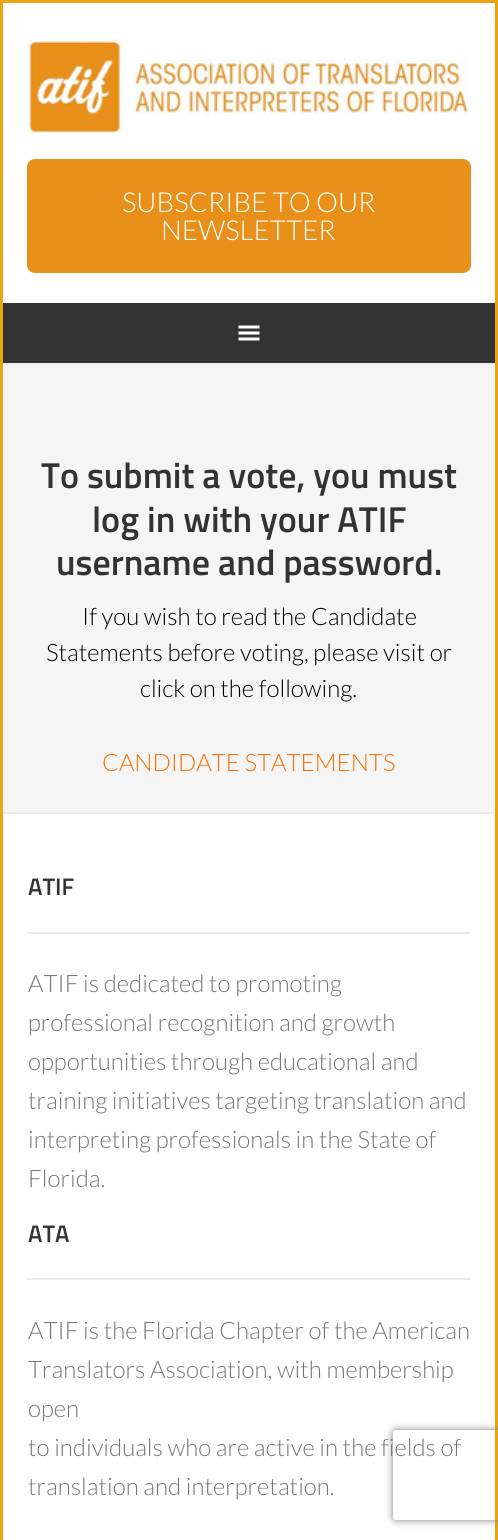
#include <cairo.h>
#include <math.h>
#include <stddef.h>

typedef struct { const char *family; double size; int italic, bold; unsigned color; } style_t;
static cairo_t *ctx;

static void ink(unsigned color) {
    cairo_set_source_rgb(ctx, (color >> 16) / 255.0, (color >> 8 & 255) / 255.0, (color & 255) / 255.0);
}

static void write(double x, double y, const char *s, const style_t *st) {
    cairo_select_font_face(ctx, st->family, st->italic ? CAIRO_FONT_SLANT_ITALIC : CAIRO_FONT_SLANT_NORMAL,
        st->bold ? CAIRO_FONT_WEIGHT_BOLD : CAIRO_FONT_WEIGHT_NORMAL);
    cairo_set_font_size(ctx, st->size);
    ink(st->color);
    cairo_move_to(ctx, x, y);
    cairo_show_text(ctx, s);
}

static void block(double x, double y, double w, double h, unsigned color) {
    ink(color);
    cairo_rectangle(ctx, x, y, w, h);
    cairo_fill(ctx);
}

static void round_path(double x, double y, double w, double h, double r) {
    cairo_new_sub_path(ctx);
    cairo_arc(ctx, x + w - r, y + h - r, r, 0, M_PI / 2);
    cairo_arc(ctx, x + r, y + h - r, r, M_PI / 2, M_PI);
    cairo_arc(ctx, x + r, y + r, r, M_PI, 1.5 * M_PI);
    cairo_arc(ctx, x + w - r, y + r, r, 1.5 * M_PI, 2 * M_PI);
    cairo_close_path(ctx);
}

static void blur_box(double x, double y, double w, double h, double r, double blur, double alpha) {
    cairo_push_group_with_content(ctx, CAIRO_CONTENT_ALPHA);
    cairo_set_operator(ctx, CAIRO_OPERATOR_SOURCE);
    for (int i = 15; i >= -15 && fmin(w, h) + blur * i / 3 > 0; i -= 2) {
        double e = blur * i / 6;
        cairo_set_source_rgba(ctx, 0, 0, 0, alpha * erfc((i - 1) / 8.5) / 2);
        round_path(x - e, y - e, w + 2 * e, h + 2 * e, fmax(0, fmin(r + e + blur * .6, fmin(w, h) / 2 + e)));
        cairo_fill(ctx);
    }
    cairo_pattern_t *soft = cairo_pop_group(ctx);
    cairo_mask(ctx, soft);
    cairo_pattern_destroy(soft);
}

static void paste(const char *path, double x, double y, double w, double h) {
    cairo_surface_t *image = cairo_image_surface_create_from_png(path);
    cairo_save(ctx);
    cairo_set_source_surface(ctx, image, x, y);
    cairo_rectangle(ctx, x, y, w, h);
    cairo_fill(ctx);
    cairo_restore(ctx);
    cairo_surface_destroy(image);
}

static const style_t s1 = {"Lato Light", 27.5, 0, 0, 0xffffff};
static const style_t s2 = {"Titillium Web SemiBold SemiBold", 36, 0, 0, 0x333333};
static const style_t s3 = {"Lato Light", 24, 0, 0, 0x000000};
static const style_t s4 = {"Lato Light", 24, 0, 0, 0xff6f00};
static const style_t s5 = {"Titillium Web SemiBold SemiBold", 24, 0, 0, 0x333333};
static const style_t s6 = {"Lato Light", 24, 0, 0, 0x777777};

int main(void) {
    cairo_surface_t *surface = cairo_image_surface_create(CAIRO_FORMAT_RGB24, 498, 1540);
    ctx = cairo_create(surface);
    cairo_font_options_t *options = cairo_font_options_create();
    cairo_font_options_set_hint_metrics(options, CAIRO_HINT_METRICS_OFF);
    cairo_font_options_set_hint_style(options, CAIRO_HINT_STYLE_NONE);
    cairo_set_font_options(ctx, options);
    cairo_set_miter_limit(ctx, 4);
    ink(0xeaa610);
    cairo_paint(ctx);
    block(3, 3, 492, 300, 0xffffff);
    paste("pic1.png", 29, 38, 439, 96);
    ink(0xe9901a);
    round_path(28, 160, 442, 112, 7);
    cairo_fill_preserve(ctx);
    cairo_stroke(ctx);
    write(122, 212, "SUBSCRIBE TO OUR", &s1);
    write(161, 240, "NEWSLETTER", &s1);
    block(3, 303, 492, 60, 0x333333);
    paste("pic2.png", 238, 325, 22, 16);
    block(3, 365, 492, 447, 0xf5f5f5);
    block(3, 363, 492, 2, 0xececec);
    write(41, 488, "To submit a vote, you must", &s2);
    write(92, 532, "log in with your ATIF", &s2);
    write(56, 575, "username and password.", &s2);
    write(82, 625, "If you wish to read the Candidate", &s3);
    write(46, 661, "Statements before voting, please visit or", &s3);
    write(140, 697, "click on the following.", &s3);
    write(102, 771, "CANDIDATE STATEMENTS", &s4);
    block(3, 814, 492, 726, 0xffffff);
    block(3, 812, 492, 2, 0xececec);
    block(27, 932, 444, 2, 0xececec);
    write(28, 895, "ATIF", &s5);
    write(28, 992, "ATIF is dedicated to promoting", &s6);
    write(28, 1031, "professional recognition and growth", &s6);
    write(28, 1070, "opportunities through educational and", &s6);
    write(28, 1109, "training initiatives targeting translation and", &s6);
    write(28, 1148, "interpreting professionals in the State of", &s6);
    write(28, 1187, "Florida.", &s6);
    block(27, 1278, 444, 2, 0xececec);
    write(28, 1242, "ATA", &s5);
    write(28, 1339, "ATIF is the Florida Chapter of the American", &s6);
    write(28, 1378, "Translators Association, with membership", &s6);
    write(28, 1417, "open", &s6);
    write(28, 1456, "to individuals who are active in the fields of", &s6);
    write(28, 1495, "translation and interpretation.", &s6);
    cairo_save(ctx);
    cairo_set_fill_rule(ctx, CAIRO_FILL_RULE_EVEN_ODD);
    cairo_new_path(ctx);
    cairo_move_to(ctx, 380, 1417);
    cairo_line_to(ctx, 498, 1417);
    cairo_line_to(ctx, 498, 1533);
    cairo_line_to(ctx, 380, 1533);
    cairo_close_path(ctx);
    cairo_move_to(ctx, 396, 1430);
    cairo_line_to(ctx, 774, 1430);
    cairo_curve_to(ctx, 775.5, 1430, 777, 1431.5, 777, 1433);
    cairo_line_to(ctx, 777, 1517);
    cairo_curve_to(ctx, 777, 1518.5, 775.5, 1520, 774, 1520);
    cairo_line_to(ctx, 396, 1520);
    cairo_curve_to(ctx, 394.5, 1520, 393, 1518.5, 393, 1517);
    cairo_line_to(ctx, 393, 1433);
    cairo_curve_to(ctx, 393, 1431.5, 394.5, 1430, 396, 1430);
    cairo_close_path(ctx);
    cairo_clip(ctx);
    ink(0x808080);
    blur_box(393, 1430, 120, 90, 3, 4, 1);
    cairo_restore(ctx);
    cairo_surface_write_to_png(surface, "screenshot.png");
    cairo_font_options_destroy(options);
    cairo_destroy(ctx);
    cairo_surface_destroy(surface);
    return 0;
}
